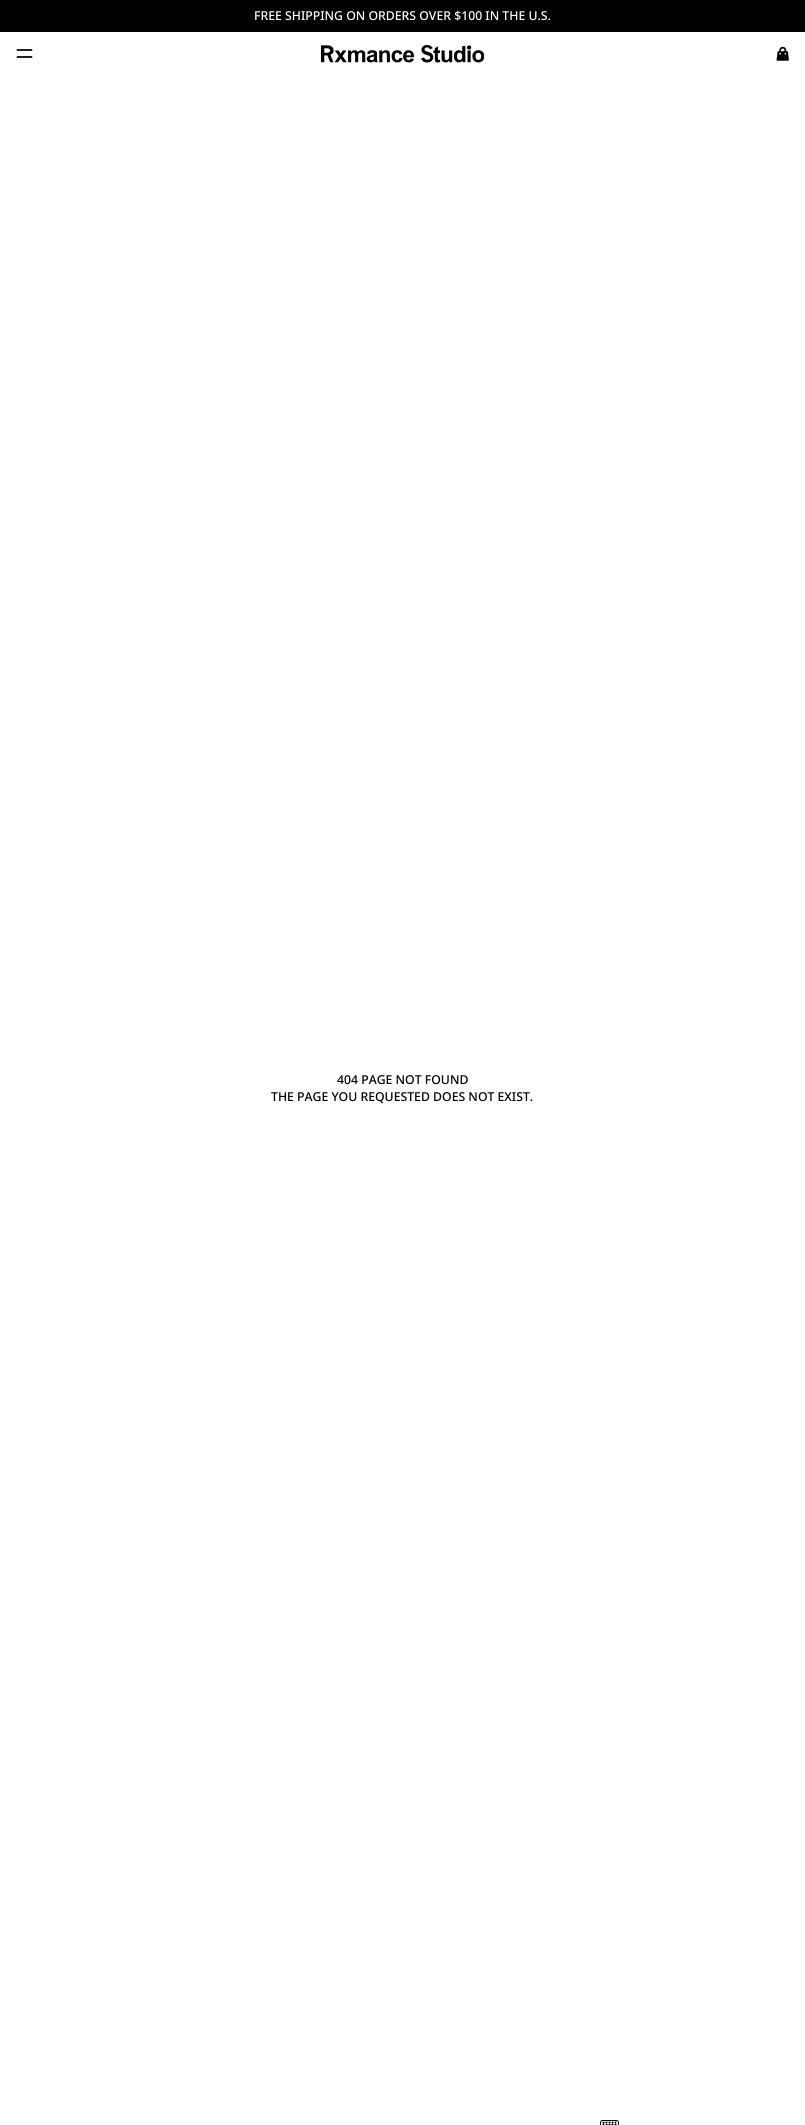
#include <cairo.h>
#include <math.h>
#include <stddef.h>

typedef struct { const char *family; double size; int italic, bold; unsigned color; } style_t;
static cairo_t *ctx;

static void ink(unsigned color) {
    cairo_set_source_rgb(ctx, (color >> 16) / 255.0, (color >> 8 & 255) / 255.0, (color & 255) / 255.0);
}

static void write(double x, double y, const char *s, const style_t *st) {
    cairo_select_font_face(ctx, st->family, st->italic ? CAIRO_FONT_SLANT_ITALIC : CAIRO_FONT_SLANT_NORMAL,
        st->bold ? CAIRO_FONT_WEIGHT_BOLD : CAIRO_FONT_WEIGHT_NORMAL);
    cairo_set_font_size(ctx, st->size);
    ink(st->color);
    cairo_move_to(ctx, x, y);
    cairo_show_text(ctx, s);
}

static void block(double x, double y, double w, double h, unsigned color) {
    ink(color);
    cairo_rectangle(ctx, x, y, w, h);
    cairo_fill(ctx);
}

static void paste(const char *path, double x, double y, double w, double h) {
    cairo_surface_t *image = cairo_image_surface_create_from_png(path);
    cairo_save(ctx);
    cairo_set_source_surface(ctx, image, x, y);
    cairo_rectangle(ctx, x, y, w, h);
    cairo_fill(ctx);
    cairo_restore(ctx);
    cairo_surface_destroy(image);
}

static const style_t s1 = {"Noto Sans Medium", 12.25, 0, 0, 0xffffff};
static const style_t s2 = {"Noto Sans Medium", 12.25, 0, 0, 0x000000};

int main(void) {
    cairo_surface_t *surface = cairo_image_surface_create(CAIRO_FORMAT_RGB24, 805, 2125);
    ctx = cairo_create(surface);
    cairo_font_options_t *options = cairo_font_options_create();
    cairo_font_options_set_hint_metrics(options, CAIRO_HINT_METRICS_OFF);
    cairo_font_options_set_hint_style(options, CAIRO_HINT_STYLE_NONE);
    cairo_set_font_options(ctx, options);
    cairo_set_miter_limit(ctx, 4);
    ink(0xffffff);
    cairo_paint(ctx);
    block(0, 0, 805, 32, 0x000000);
    write(254, 20, "FREE SHIPPING ON ORDERS OVER $100 IN THE U.S.", &s1);
    cairo_new_path(ctx);
    cairo_move_to(ctx, 17.5, 50);
    cairo_line_to(ctx, 31.5, 50);
    cairo_move_to(ctx, 17.5, 57);
    cairo_line_to(ctx, 31.5, 57);
    ink(0x000000);
    cairo_set_line_width(ctx, 1.8);
    cairo_set_line_cap(ctx, CAIRO_LINE_CAP_ROUND);
    cairo_set_line_join(ctx, CAIRO_LINE_JOIN_ROUND);
    cairo_stroke(ctx);
    paste("pic1.png", 321, 45, 163, 18);
    paste("pic2.png", 776, 46, 13, 15);
    write(337, 1084, "404 PAGE NOT FOUND", &s2);
    write(271, 1101, "THE PAGE YOU REQUESTED DOES NOT EXIST.", &s2);
    paste("pic3.png", 600, 2120, 19, 5);
    cairo_surface_write_to_png(surface, "screenshot.png");
    cairo_font_options_destroy(options);
    cairo_destroy(ctx);
    cairo_surface_destroy(surface);
    return 0;
}
